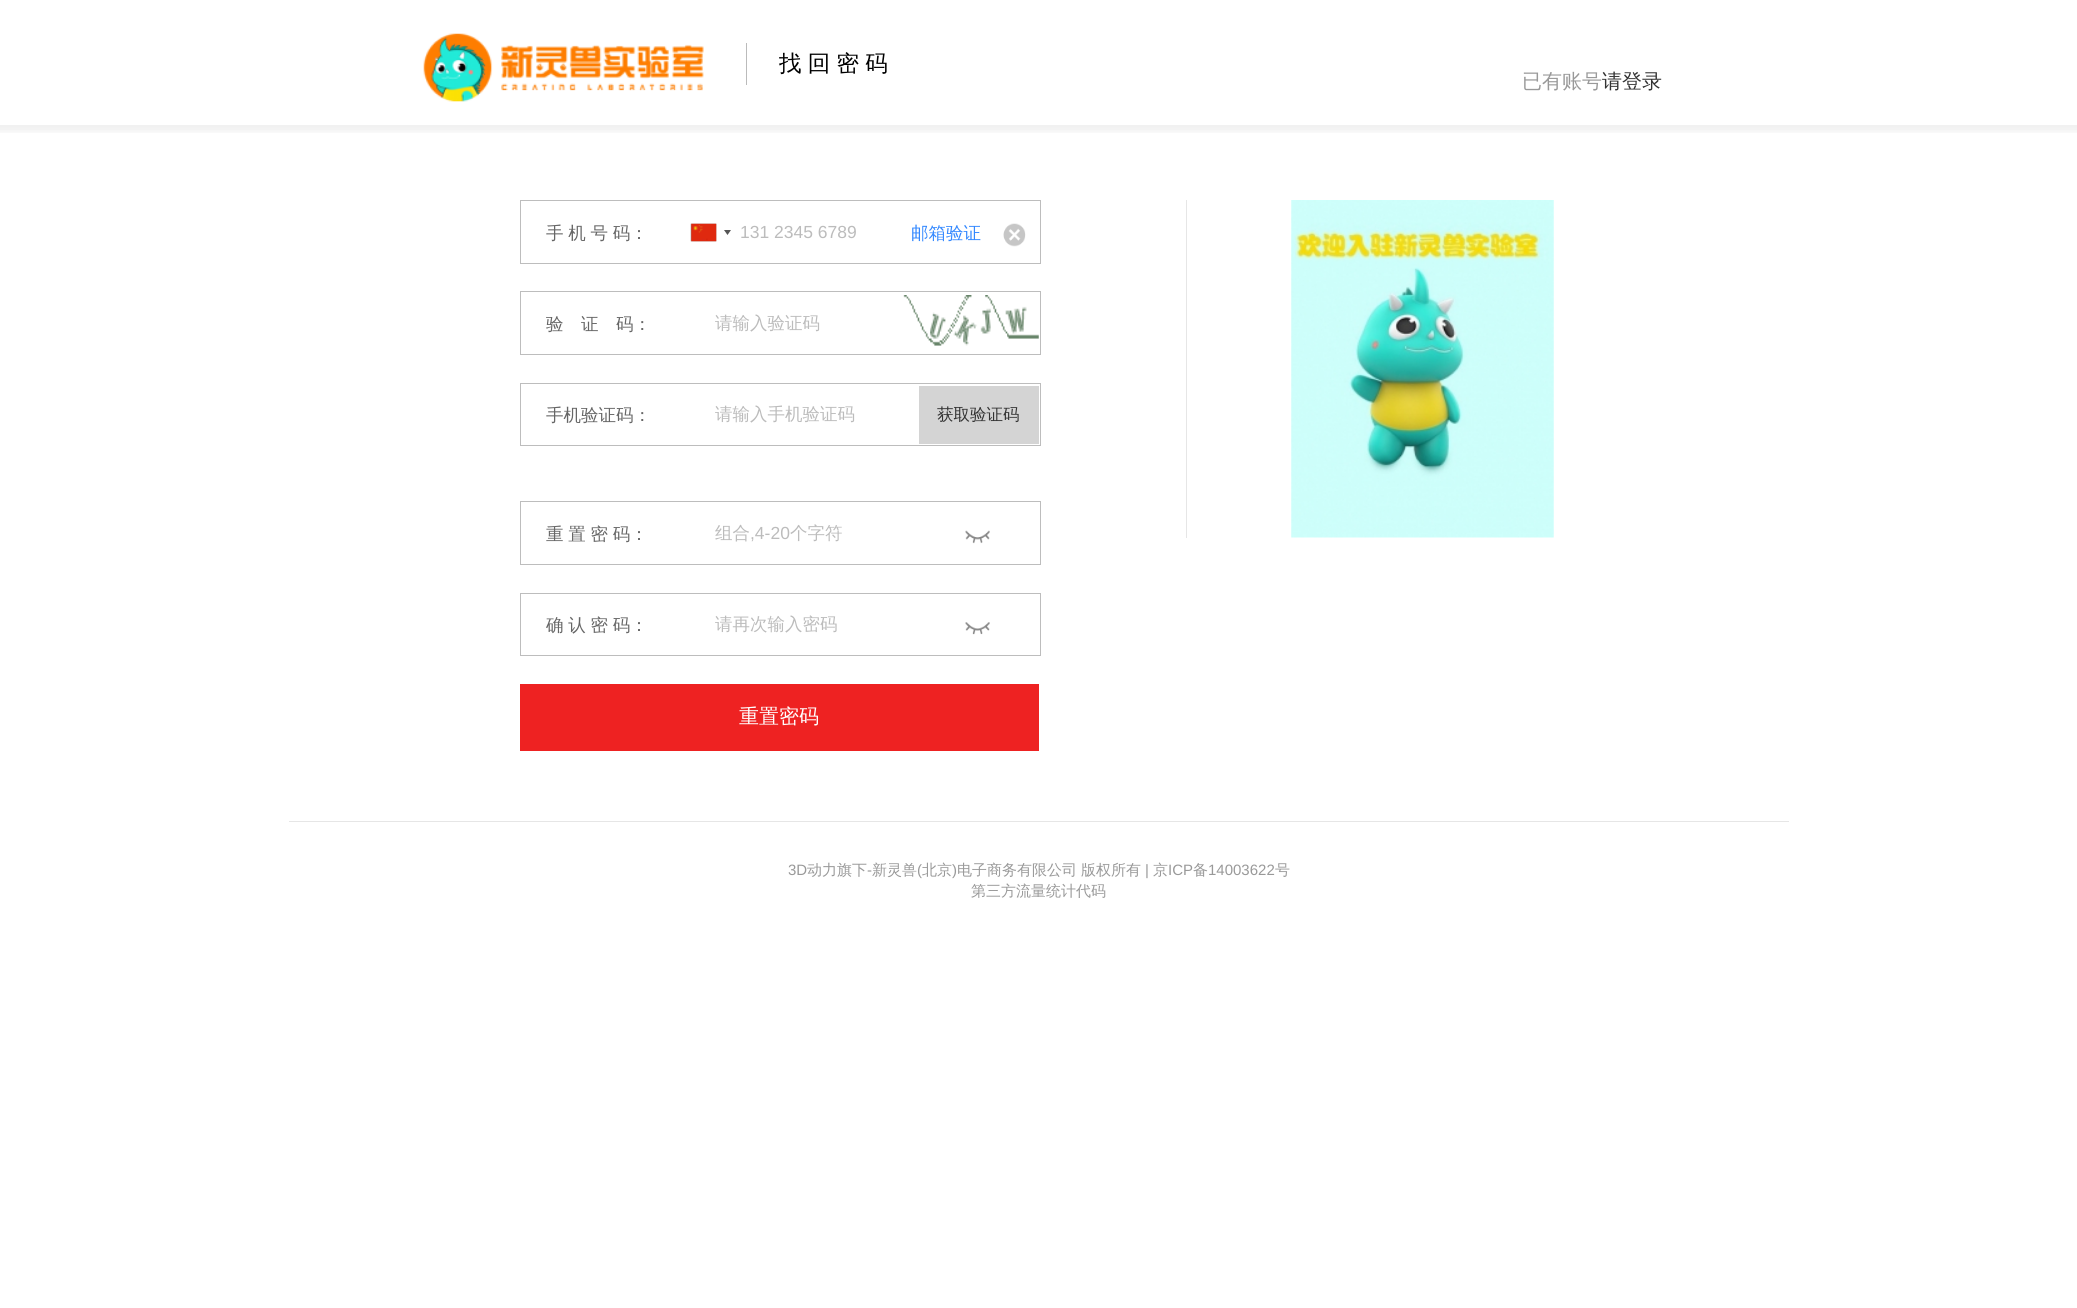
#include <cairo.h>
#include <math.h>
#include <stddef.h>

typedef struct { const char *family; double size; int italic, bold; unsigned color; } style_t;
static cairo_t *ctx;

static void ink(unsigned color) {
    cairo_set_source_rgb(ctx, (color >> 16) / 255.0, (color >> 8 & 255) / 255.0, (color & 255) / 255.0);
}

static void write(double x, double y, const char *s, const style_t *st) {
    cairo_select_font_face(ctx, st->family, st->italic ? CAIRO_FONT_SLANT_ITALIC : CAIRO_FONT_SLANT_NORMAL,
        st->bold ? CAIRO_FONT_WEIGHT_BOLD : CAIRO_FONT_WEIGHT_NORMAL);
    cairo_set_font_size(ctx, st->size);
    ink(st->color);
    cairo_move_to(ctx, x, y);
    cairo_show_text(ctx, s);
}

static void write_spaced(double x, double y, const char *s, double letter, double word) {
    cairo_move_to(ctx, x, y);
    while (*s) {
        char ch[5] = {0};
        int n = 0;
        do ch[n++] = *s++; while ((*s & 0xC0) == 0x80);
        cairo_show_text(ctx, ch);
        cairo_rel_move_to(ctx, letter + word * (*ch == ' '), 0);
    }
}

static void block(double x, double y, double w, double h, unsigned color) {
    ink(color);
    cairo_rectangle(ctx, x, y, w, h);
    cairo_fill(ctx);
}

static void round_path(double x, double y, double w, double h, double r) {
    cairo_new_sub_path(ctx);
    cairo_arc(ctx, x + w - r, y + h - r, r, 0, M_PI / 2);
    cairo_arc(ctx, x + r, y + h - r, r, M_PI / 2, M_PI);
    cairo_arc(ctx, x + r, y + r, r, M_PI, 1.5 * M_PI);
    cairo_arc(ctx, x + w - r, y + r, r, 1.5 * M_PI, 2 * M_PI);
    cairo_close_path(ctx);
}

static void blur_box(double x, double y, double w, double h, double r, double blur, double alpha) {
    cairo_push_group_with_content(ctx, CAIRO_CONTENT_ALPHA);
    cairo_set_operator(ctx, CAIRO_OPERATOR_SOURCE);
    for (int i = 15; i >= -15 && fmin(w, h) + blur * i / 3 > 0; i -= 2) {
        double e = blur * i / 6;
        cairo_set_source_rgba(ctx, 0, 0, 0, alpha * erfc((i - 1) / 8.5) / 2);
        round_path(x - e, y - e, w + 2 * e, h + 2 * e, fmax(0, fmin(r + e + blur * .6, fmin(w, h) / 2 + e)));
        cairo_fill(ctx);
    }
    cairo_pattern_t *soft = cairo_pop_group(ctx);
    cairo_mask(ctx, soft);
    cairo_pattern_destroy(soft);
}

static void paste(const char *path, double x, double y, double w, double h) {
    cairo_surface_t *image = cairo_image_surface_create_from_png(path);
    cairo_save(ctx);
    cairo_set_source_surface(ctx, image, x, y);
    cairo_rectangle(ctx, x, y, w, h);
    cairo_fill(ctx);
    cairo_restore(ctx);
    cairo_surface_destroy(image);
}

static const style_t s1 = {"WenQuanYi Zen Hei Medium", 20, 0, 0, 0x999999};
static const style_t s2 = {"WenQuanYi Zen Hei Medium", 20, 0, 0, 0x333333};
static const style_t s3 = {"Liberation Sans", 17.5, 0, 0, 0xbcbcbc};
static const style_t s4 = {"WenQuanYi Zen Hei Medium", 17.5, 0, 0, 0x3388ff};
static const style_t s5 = {"WenQuanYi Zen Hei Medium", 17.5, 0, 0, 0x666666};
static const style_t s6 = {"WenQuanYi Zen Hei Medium", 17.5, 0, 0, 0xbcbcbc};
static const style_t s7 = {"WenQuanYi Zen Hei Medium", 16.5, 0, 0, 0x333333};
static const style_t s8 = {"WenQuanYi Zen Hei Medium", 20, 0, 0, 0xffffff};
static const style_t s9 = {"Liberation Sans", 15, 0, 0, 0x999999};
static const style_t s10 = {"WenQuanYi Zen Hei Medium", 15, 0, 0, 0x999999};

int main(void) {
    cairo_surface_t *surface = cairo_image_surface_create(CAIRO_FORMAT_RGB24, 2077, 1308);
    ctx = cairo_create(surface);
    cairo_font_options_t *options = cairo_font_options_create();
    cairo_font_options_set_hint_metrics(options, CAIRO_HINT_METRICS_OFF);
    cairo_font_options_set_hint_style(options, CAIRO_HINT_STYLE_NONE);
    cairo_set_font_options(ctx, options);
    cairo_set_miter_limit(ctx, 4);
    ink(0xffffff);
    cairo_paint(ctx);
    paste("pic1.png", 0, 125, 2077, 8);
    paste("pic2.png", 423, 33, 281, 69);
    block(746, 43, 1, 42, 0xbbbbbb);
    cairo_select_font_face(ctx, "WenQuanYi Zen Hei Medium", CAIRO_FONT_SLANT_NORMAL, CAIRO_FONT_WEIGHT_NORMAL);
    cairo_set_font_size(ctx, 22.5);
    ink(0x000000);
    write_spaced(779, 71, "找 回 密 码", 0, -0.5);
    write(1522, 88, "已有账号", &s1);
    write(1602, 88, "请登录", &s2);
    cairo_rectangle(ctx, 520.5, 200.5, 520, 63);
    ink(0xbdbdbd);
    cairo_set_line_width(ctx, 1);
    cairo_stroke(ctx);
    cairo_set_font_size(ctx, 17.5);
    ink(0x666666);
    write_spaced(546, 239, "手 机 号 码：", 0, -0.5);
    ink(0x888888);
    blur_box(691, 224, 25, 17, 0, 0.5, 1);
    paste("pic3.png", 691, 223, 26, 19);
    ink(0x555555);
    cairo_new_path(ctx);
    cairo_move_to(ctx, 724, 230);
    cairo_line_to(ctx, 731, 230);
    cairo_line_to(ctx, 727.5, 235);
    cairo_close_path(ctx);
    cairo_fill(ctx);
    write(740, 238, "131 2345 6789", &s3);
    paste("pic4.png", 1003, 223, 23, 24);
    write(911, 239, "邮箱验证", &s4);
    cairo_rectangle(ctx, 520.5, 291.5, 520, 63);
    ink(0xbdbdbd);
    cairo_stroke(ctx);
    write(546, 330, "验　证　码：", &s5);
    write(715, 329, "请输入验证码", &s6);
    paste("pic5.png", 903, 295, 136, 51);
    cairo_rectangle(ctx, 520.5, 383.5, 520, 62);
    ink(0xbdbdbd);
    cairo_stroke(ctx);
    write(546, 421, "手机验证码：", &s5);
    write(715, 420, "请输入手机验证码", &s6);
    block(919, 386, 120, 58, 0xd4d4d4);
    write(937, 420, "获取验证码", &s7);
    cairo_rectangle(ctx, 520.5, 501.5, 520, 63);
    ink(0xbdbdbd);
    cairo_stroke(ctx);
    cairo_set_font_size(ctx, 17.5);
    ink(0x666666);
    write_spaced(546, 540, "重 置 密 码：", 0, -0.5);
    write(715, 539, "组合", &s6);
    write(750, 539, ",4-20", &s3);
    write(790, 539, "个字符", &s6);
    paste("pic6.png", 965, 530, 25, 14);
    cairo_rectangle(ctx, 520.5, 593.5, 520, 62);
    ink(0xbdbdbd);
    cairo_stroke(ctx);
    ink(0x666666);
    write_spaced(546, 631, "确 认 密 码：", 0, -0.5);
    write(715, 630, "请再次输入密码", &s6);
    paste("pic7.png", 965, 622, 25, 13);
    block(520, 684, 519, 67, 0xee2222);
    write(739, 723, "重置密码", &s8);
    block(1186, 200, 1, 338, 0xe6e6e6);
    paste("pic8.png", 1291, 200, 263, 338);
    block(289, 821, 1500, 1, 0xe6e6e6);
    write(788, 875, "3D", &s9);
    write(807, 875, "动力旗下", &s10);
    write(867, 875, "-", &s9);
    write(872, 875, "新灵兽", &s10);
    write(917, 875, "(", &s9);
    write(922, 875, "北京", &s10);
    write(952, 875, ")", &s9);
    write(957, 875, "电子商务有限公司", &s10);
    write(1081, 875, "版权所有", &s10);
    write(1145, 875, "|", &s9);
    write(1153, 875, "京", &s10);
    write(1168, 875, "ICP", &s9);
    write(1193, 875, "备", &s10);
    write(1208, 875, "14003622", &s9);
    write(1275, 875, "号", &s10);
    write(971, 896, "第三方流量统计代码", &s10);
    cairo_surface_write_to_png(surface, "screenshot.png");
    cairo_font_options_destroy(options);
    cairo_destroy(ctx);
    cairo_surface_destroy(surface);
    return 0;
}
